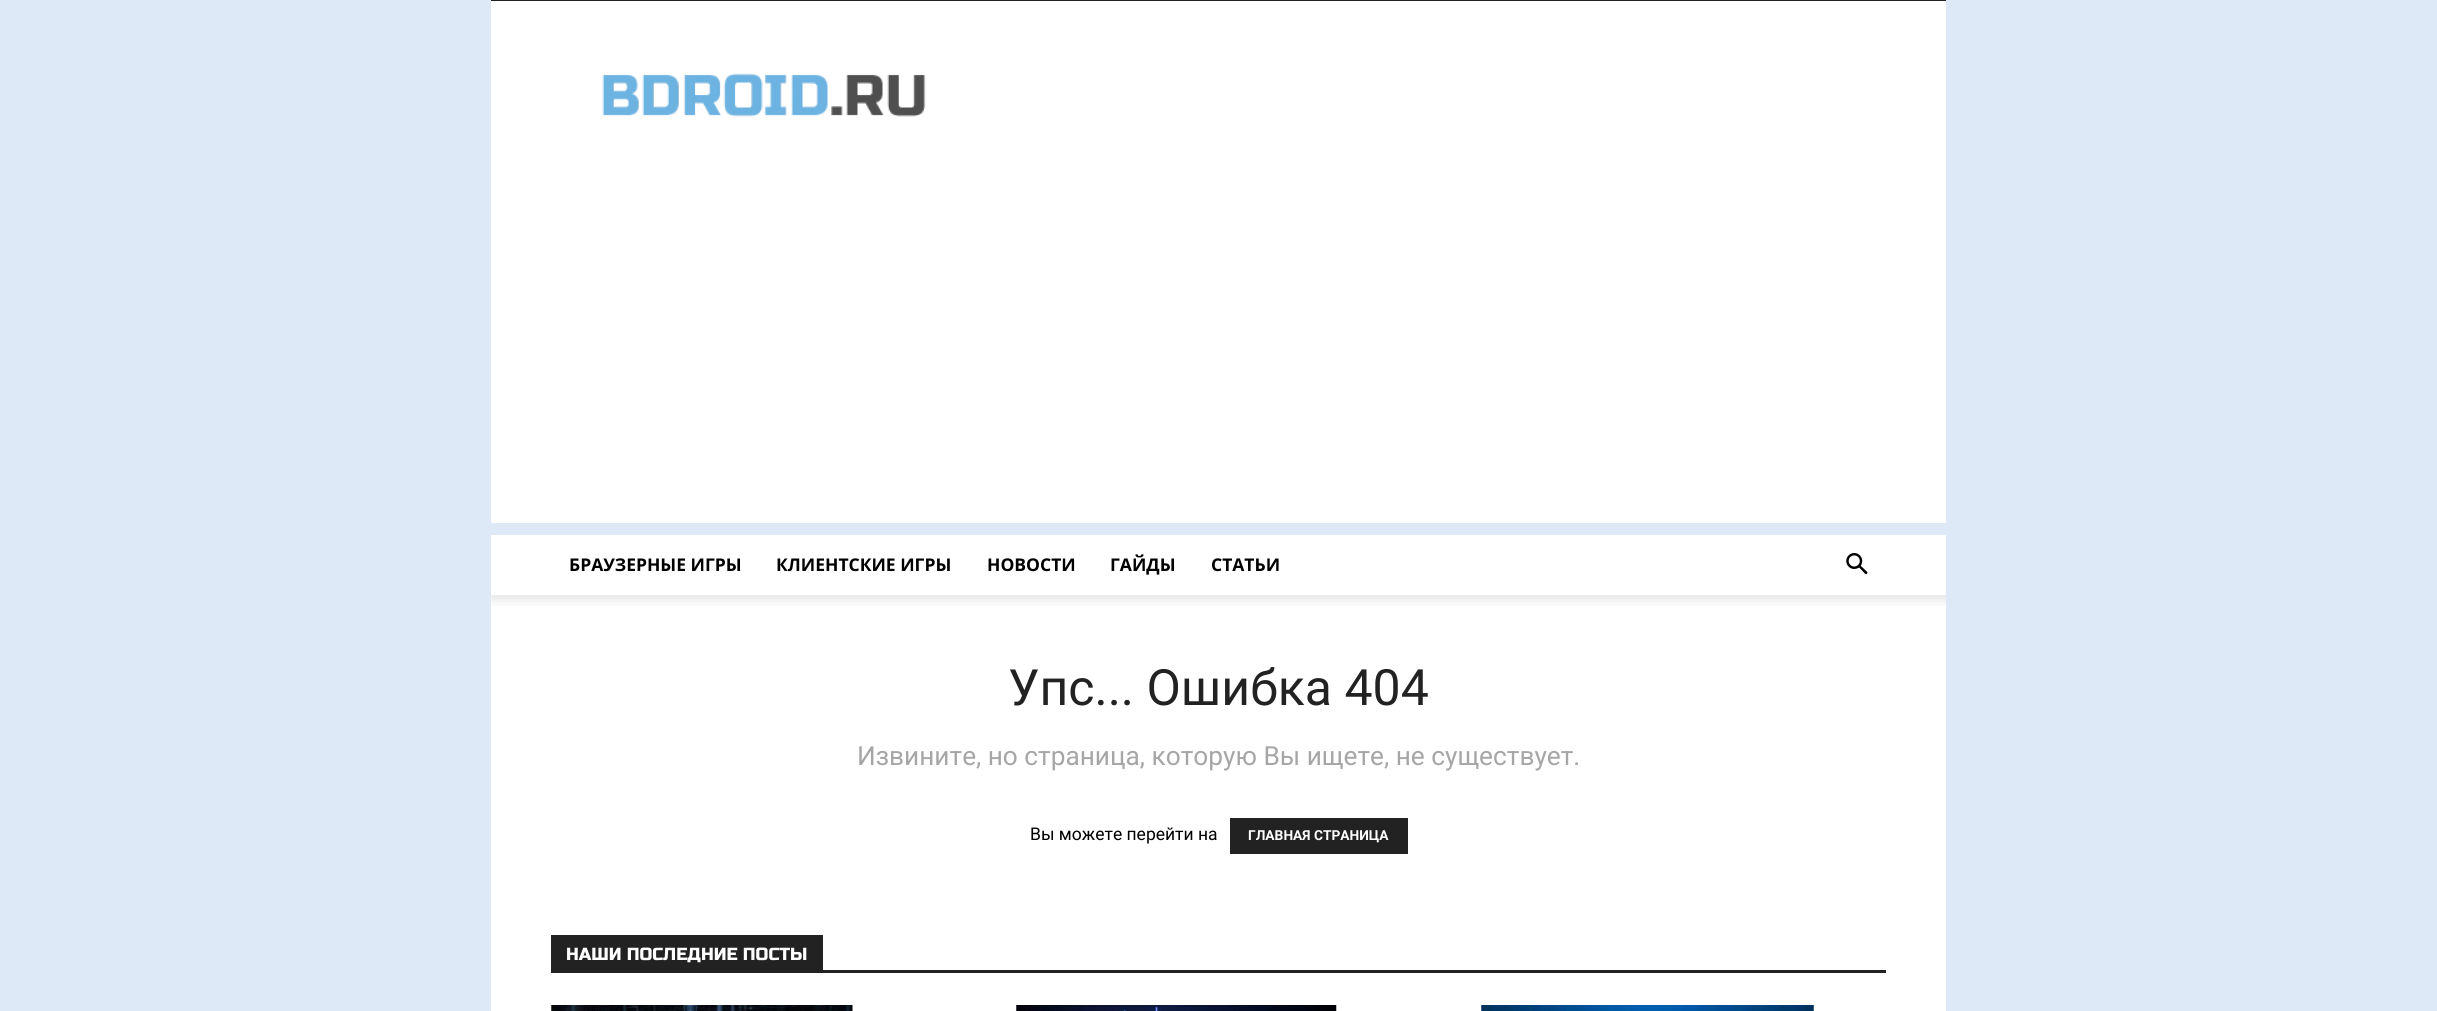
#include <cairo.h>
#include <math.h>
#include <stddef.h>

typedef struct { const char *family; double size; int italic, bold; unsigned color; } style_t;
static cairo_t *ctx;

static void ink(unsigned color) {
    cairo_set_source_rgb(ctx, (color >> 16) / 255.0, (color >> 8 & 255) / 255.0, (color & 255) / 255.0);
}

static void write(double x, double y, const char *s, const style_t *st) {
    cairo_select_font_face(ctx, st->family, st->italic ? CAIRO_FONT_SLANT_ITALIC : CAIRO_FONT_SLANT_NORMAL,
        st->bold ? CAIRO_FONT_WEIGHT_BOLD : CAIRO_FONT_WEIGHT_NORMAL);
    cairo_set_font_size(ctx, st->size);
    ink(st->color);
    cairo_move_to(ctx, x, y);
    cairo_show_text(ctx, s);
}

static void block(double x, double y, double w, double h, unsigned color) {
    ink(color);
    cairo_rectangle(ctx, x, y, w, h);
    cairo_fill(ctx);
}

static void paste(const char *path, double x, double y, double w, double h) {
    cairo_surface_t *image = cairo_image_surface_create_from_png(path);
    cairo_save(ctx);
    cairo_set_source_surface(ctx, image, x, y);
    cairo_rectangle(ctx, x, y, w, h);
    cairo_fill(ctx);
    cairo_restore(ctx);
    cairo_surface_destroy(image);
}

static const style_t s1 = {"Open Sans", 17.5, 0, 1, 0x000000};
static const style_t s2 = {"Roboto", 50, 0, 0, 0x222222};
static const style_t s3 = {"Roboto", 26.25, 0, 0, 0xa6a6a6};
static const style_t s4 = {"Roboto", 17.5, 0, 0, 0x000000};
static const style_t s5 = {"Roboto", 13.75, 0, 1, 0xffffff};
static const style_t s6 = {"Russo One", 17.5, 0, 0, 0xffffff};

int main(void) {
    cairo_surface_t *surface = cairo_image_surface_create(CAIRO_FORMAT_RGB24, 2437, 1011);
    ctx = cairo_create(surface);
    cairo_font_options_t *options = cairo_font_options_create();
    cairo_font_options_set_hint_metrics(options, CAIRO_HINT_METRICS_OFF);
    cairo_font_options_set_hint_style(options, CAIRO_HINT_STYLE_NONE);
    cairo_set_font_options(ctx, options);
    cairo_set_miter_limit(ctx, 4);
    ink(0xdde9f6);
    cairo_paint(ctx);
    block(491, 0, 1455, 1, 0x222222);
    block(491, 1, 1455, 522, 0xffffff);
    paste("pic1.png", 602, 73, 324, 44);
    block(491, 535, 1455, 476, 0xffffff);
    write(569, 571, "БРАУЗЕРНЫЕ ИГРЫ", &s1);
    write(776, 571, "КЛИЕНТСКИЕ ИГРЫ", &s1);
    write(987, 571, "НОВОСТИ", &s1);
    write(1110, 571, "ГАЙДЫ", &s1);
    write(1211, 571, "СТАТЬИ", &s1);
    paste("pic2.png", 1846, 553, 22, 22);
    paste("pic3.png", 491, 595, 1455, 11);
    write(1008, 705, "Упс... Ошибка 404", &s2);
    write(857, 765, "Извините, но страница, которую Вы ищете, не существует.", &s3);
    write(1030, 840, "Вы можете перейти на", &s4);
    block(1230, 818, 178, 36, 0x222222);
    write(1248, 840, "ГЛАВНАЯ СТРАНИЦА", &s5);
    block(551, 970, 1335, 3, 0x222222);
    block(551, 935, 272, 35, 0x222222);
    write(566, 960, "НАШИ ПОСЛЕДНИЕ ПОСТЫ", &s6);
    paste("pic4.png", 551, 1005, 302, 6);
    paste("pic5.png", 1016, 1005, 321, 6);
    paste("pic6.png", 1481, 1005, 333, 6);
    cairo_surface_write_to_png(surface, "screenshot.png");
    cairo_font_options_destroy(options);
    cairo_destroy(ctx);
    cairo_surface_destroy(surface);
    return 0;
}
